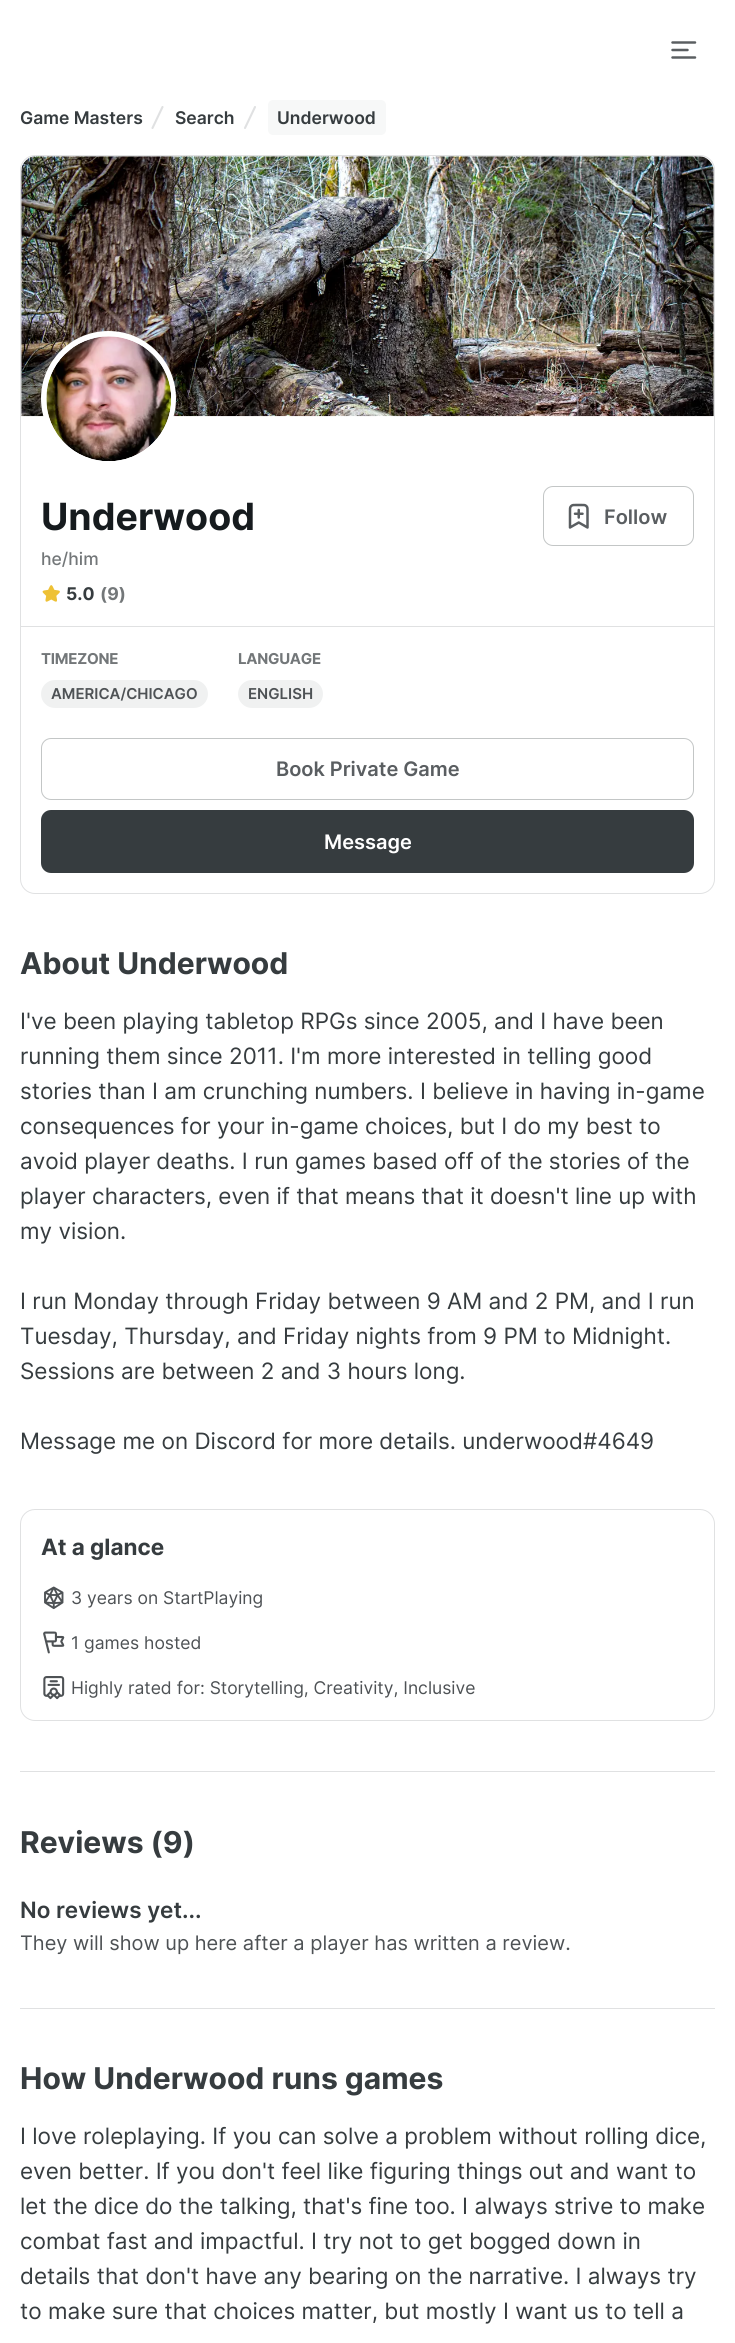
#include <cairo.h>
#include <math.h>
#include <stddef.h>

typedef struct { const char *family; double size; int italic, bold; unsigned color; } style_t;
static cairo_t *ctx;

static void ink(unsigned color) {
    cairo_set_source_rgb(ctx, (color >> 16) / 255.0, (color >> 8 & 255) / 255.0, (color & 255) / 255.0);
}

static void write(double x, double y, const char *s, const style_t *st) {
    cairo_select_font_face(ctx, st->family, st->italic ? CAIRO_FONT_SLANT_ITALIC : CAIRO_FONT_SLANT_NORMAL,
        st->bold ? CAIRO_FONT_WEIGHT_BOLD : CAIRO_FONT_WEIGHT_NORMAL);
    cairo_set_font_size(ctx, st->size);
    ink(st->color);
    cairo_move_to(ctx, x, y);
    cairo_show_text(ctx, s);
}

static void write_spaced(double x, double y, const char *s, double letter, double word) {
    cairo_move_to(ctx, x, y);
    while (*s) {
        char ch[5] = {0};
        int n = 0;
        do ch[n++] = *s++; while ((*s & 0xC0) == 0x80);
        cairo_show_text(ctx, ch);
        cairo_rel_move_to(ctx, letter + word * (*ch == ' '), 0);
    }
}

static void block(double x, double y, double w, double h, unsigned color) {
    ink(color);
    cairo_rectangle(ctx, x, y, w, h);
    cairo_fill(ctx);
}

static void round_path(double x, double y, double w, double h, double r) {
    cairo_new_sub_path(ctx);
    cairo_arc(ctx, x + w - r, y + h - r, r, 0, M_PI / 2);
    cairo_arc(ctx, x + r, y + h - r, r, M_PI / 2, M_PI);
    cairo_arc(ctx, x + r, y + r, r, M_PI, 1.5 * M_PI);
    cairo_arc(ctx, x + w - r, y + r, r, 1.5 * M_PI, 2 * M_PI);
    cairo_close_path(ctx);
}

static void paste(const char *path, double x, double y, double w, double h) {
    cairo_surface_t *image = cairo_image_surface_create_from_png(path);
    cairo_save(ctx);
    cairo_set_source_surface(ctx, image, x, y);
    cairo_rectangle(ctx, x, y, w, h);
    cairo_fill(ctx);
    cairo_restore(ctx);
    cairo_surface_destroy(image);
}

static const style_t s1 = {"Inter SemiBold", 17.5, 0, 0, 0x363c3f};
static const style_t s2 = {"Inter", 37.5, 0, 1, 0x161b1e};
static const style_t s3 = {"Inter SemiBold", 20, 0, 0, 0x5a5e61};
static const style_t s4 = {"Inter Medium", 17.5, 0, 0, 0x737779};
static const style_t s5 = {"Inter", 17.5, 0, 1, 0x363c3f};
static const style_t s6 = {"Inter", 17.5, 0, 1, 0x737779};
static const style_t s7 = {"Inter SemiBold", 15, 0, 0, 0x4e5255};
static const style_t s8 = {"Inter SemiBold", 20, 0, 0, 0xffffff};
static const style_t s9 = {"Inter", 30, 0, 1, 0x363c3f};
static const style_t s10 = {"Inter", 22.5, 0, 0, 0x363c3f};
static const style_t s11 = {"Inter", 22.5, 0, 1, 0x363c3f};
static const style_t s12 = {"Inter", 17.5, 0, 0, 0x4e5255};
static const style_t s13 = {"Inter SemiBold", 22.5, 0, 0, 0x363c3f};
static const style_t s14 = {"Inter", 20, 0, 0, 0x4e5255};

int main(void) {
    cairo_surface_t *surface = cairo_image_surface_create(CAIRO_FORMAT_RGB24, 735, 2343);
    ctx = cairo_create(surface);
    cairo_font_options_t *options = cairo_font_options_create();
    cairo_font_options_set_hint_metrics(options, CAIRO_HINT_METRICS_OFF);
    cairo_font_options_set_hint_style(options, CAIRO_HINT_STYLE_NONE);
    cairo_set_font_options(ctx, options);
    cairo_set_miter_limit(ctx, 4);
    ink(0xffffff);
    cairo_paint(ctx);
    cairo_new_path(ctx);
    cairo_move_to(ctx, 672.5, 50);
    cairo_line_to(ctx, 687.5, 50);
    cairo_move_to(ctx, 672.5, 42.5);
    cairo_line_to(ctx, 695, 42.5);
    cairo_move_to(ctx, 672.5, 57.5);
    cairo_line_to(ctx, 695, 57.5);
    ink(0x5a5e61);
    cairo_set_line_width(ctx, 2.5);
    cairo_set_line_cap(ctx, CAIRO_LINE_CAP_ROUND);
    cairo_set_line_join(ctx, CAIRO_LINE_JOIN_ROUND);
    cairo_stroke(ctx);
    write(20, 124, "Game Masters", &s1);
    cairo_new_path(ctx);
    cairo_move_to(ctx, 152.5, 128);
    cairo_line_to(ctx, 162.5, 107);
    ink(0xe0e1e2);
    cairo_set_line_width(ctx, 2.1);
    cairo_stroke(ctx);
    write(175, 124, "Search", &s1);
    cairo_new_path(ctx);
    cairo_move_to(ctx, 245, 128);
    cairo_line_to(ctx, 255, 107);
    ink(0xe0e1e2);
    cairo_stroke(ctx);
    ink(0xf7f8f8);
    round_path(268, 100, 118, 35, 5);
    cairo_fill(ctx);
    write(277, 124, "Underwood", &s1);
    round_path(20.5, 155.5, 694, 738, 14.5);
    ink(0xe0e1e2);
    cairo_set_line_width(ctx, 1);
    cairo_set_line_cap(ctx, CAIRO_LINE_CAP_BUTT);
    cairo_set_line_join(ctx, CAIRO_LINE_JOIN_MITER);
    cairo_stroke(ctx);
    paste("pic1.png", 21, 156, 693, 261);
    ink(0xffffff);
    cairo_arc(ctx, 108.5, 398.5, 65, 0, 2 * M_PI);
    cairo_fill_preserve(ctx);
    cairo_set_line_width(ctx, 5);
    cairo_stroke(ctx);
    paste("pic2.png", 46, 336, 125, 125);
    write(41, 530, "Underwood", &s2);
    round_path(543.5, 486.5, 150, 59, 9.5);
    ink(0xc3c6c6);
    cairo_set_line_width(ctx, 1);
    cairo_stroke(ctx);
    paste("pic3.png", 568, 503, 21, 26);
    write(604, 524, "Follow", &s3);
    write(41, 565, "he/him", &s4);
    paste("pic4.png", 42, 585, 18, 17);
    write(66, 600, "5.0", &s5);
    write(100, 600, "(9)", &s6);
    block(21, 626, 693, 1, 0xe0e1e2);
    cairo_set_font_size(ctx, 15);
    ink(0x737779);
    write_spaced(41, 664, "TIMEZONE", -0.25, 0);
    ink(0xf0f1f1);
    round_path(41, 680, 167, 28, 14);
    cairo_fill(ctx);
    write(51, 699, "AMERICA/CHICAGO", &s7);
    cairo_select_font_face(ctx, "Inter", CAIRO_FONT_SLANT_NORMAL, CAIRO_FONT_WEIGHT_BOLD);
    ink(0x737779);
    write_spaced(238, 664, "LANGUAGE", -0.25, 0);
    ink(0xf0f1f1);
    round_path(238, 680, 85, 28, 14);
    cairo_fill(ctx);
    write(248, 699, "ENGLISH", &s7);
    round_path(41.5, 738.5, 652, 61, 9.5);
    ink(0xc3c6c6);
    cairo_stroke(ctx);
    write(276, 776, "Book Private Game", &s3);
    ink(0x363c3f);
    round_path(41, 810, 653, 63, 10);
    cairo_fill(ctx);
    write(324, 849, "Message", &s8);
    write(20, 974, "About Underwood", &s9);
    write(20, 1029, "I've been playing tabletop RPGs since 2005, and I have been", &s10);
    write(20, 1064, "running them since 2011. I'm more interested in telling good", &s10);
    write(20, 1099, "stories than I am crunching numbers. I believe in having in-game", &s10);
    write(20, 1134, "consequences for your in-game choices, but I do my best to", &s10);
    write(20, 1169, "avoid player deaths. I run games based off of the stories of the", &s10);
    write(20, 1204, "player characters, even if that means that it doesn't line up with", &s10);
    write(20, 1239, "my vision.", &s10);
    write(20, 1309, "I run Monday through Friday between 9 AM and 2 PM, and I run", &s10);
    write(20, 1344, "Tuesday, Thursday, and Friday nights from 9 PM to Midnight.", &s10);
    write(20, 1379, "Sessions are between 2 and 3 hours long.", &s10);
    write(20, 1449, "Message me on Discord for more details. underwood#4649", &s10);
    round_path(20.5, 1509.5, 694, 211, 14.5);
    ink(0xe0e1e2);
    cairo_stroke(ctx);
    write(41, 1555, "At a glance", &s11);
    paste("pic5.png", 44, 1586, 20, 24);
    write(71, 1604, "3 years on StartPlaying", &s12);
    paste("pic6.png", 43, 1631, 22, 23);
    write(71, 1649, "1 games hosted", &s12);
    paste("pic7.png", 43, 1676, 22, 24);
    write(71, 1694, "Highly rated for: Storytelling, Creativity, Inclusive", &s12);
    block(20, 1771, 695, 1, 0xe0e1e2);
    write(20, 1853, "Reviews (9)", &s9);
    write(20, 1918, "No reviews yet...", &s13);
    write(20, 1950, "They will show up here after a player has written a review.", &s14);
    block(20, 2008, 695, 1, 0xe0e1e2);
    write(20, 2089, "How Underwood runs games", &s9);
    write(20, 2144, "I love roleplaying. If you can solve a problem without rolling dice,", &s10);
    write(20, 2179, "even better. If you don't feel like figuring things out and want to", &s10);
    write(20, 2214, "let the dice do the talking, that's fine too. I always strive to make", &s10);
    write(20, 2249, "combat fast and impactful. I try not to get bogged down in", &s10);
    write(20, 2284, "details that don't have any bearing on the narrative. I always try", &s10);
    write(20, 2319, "to make sure that choices matter, but mostly I want us to tell a", &s10);
    cairo_surface_write_to_png(surface, "screenshot.png");
    cairo_font_options_destroy(options);
    cairo_destroy(ctx);
    cairo_surface_destroy(surface);
    return 0;
}
